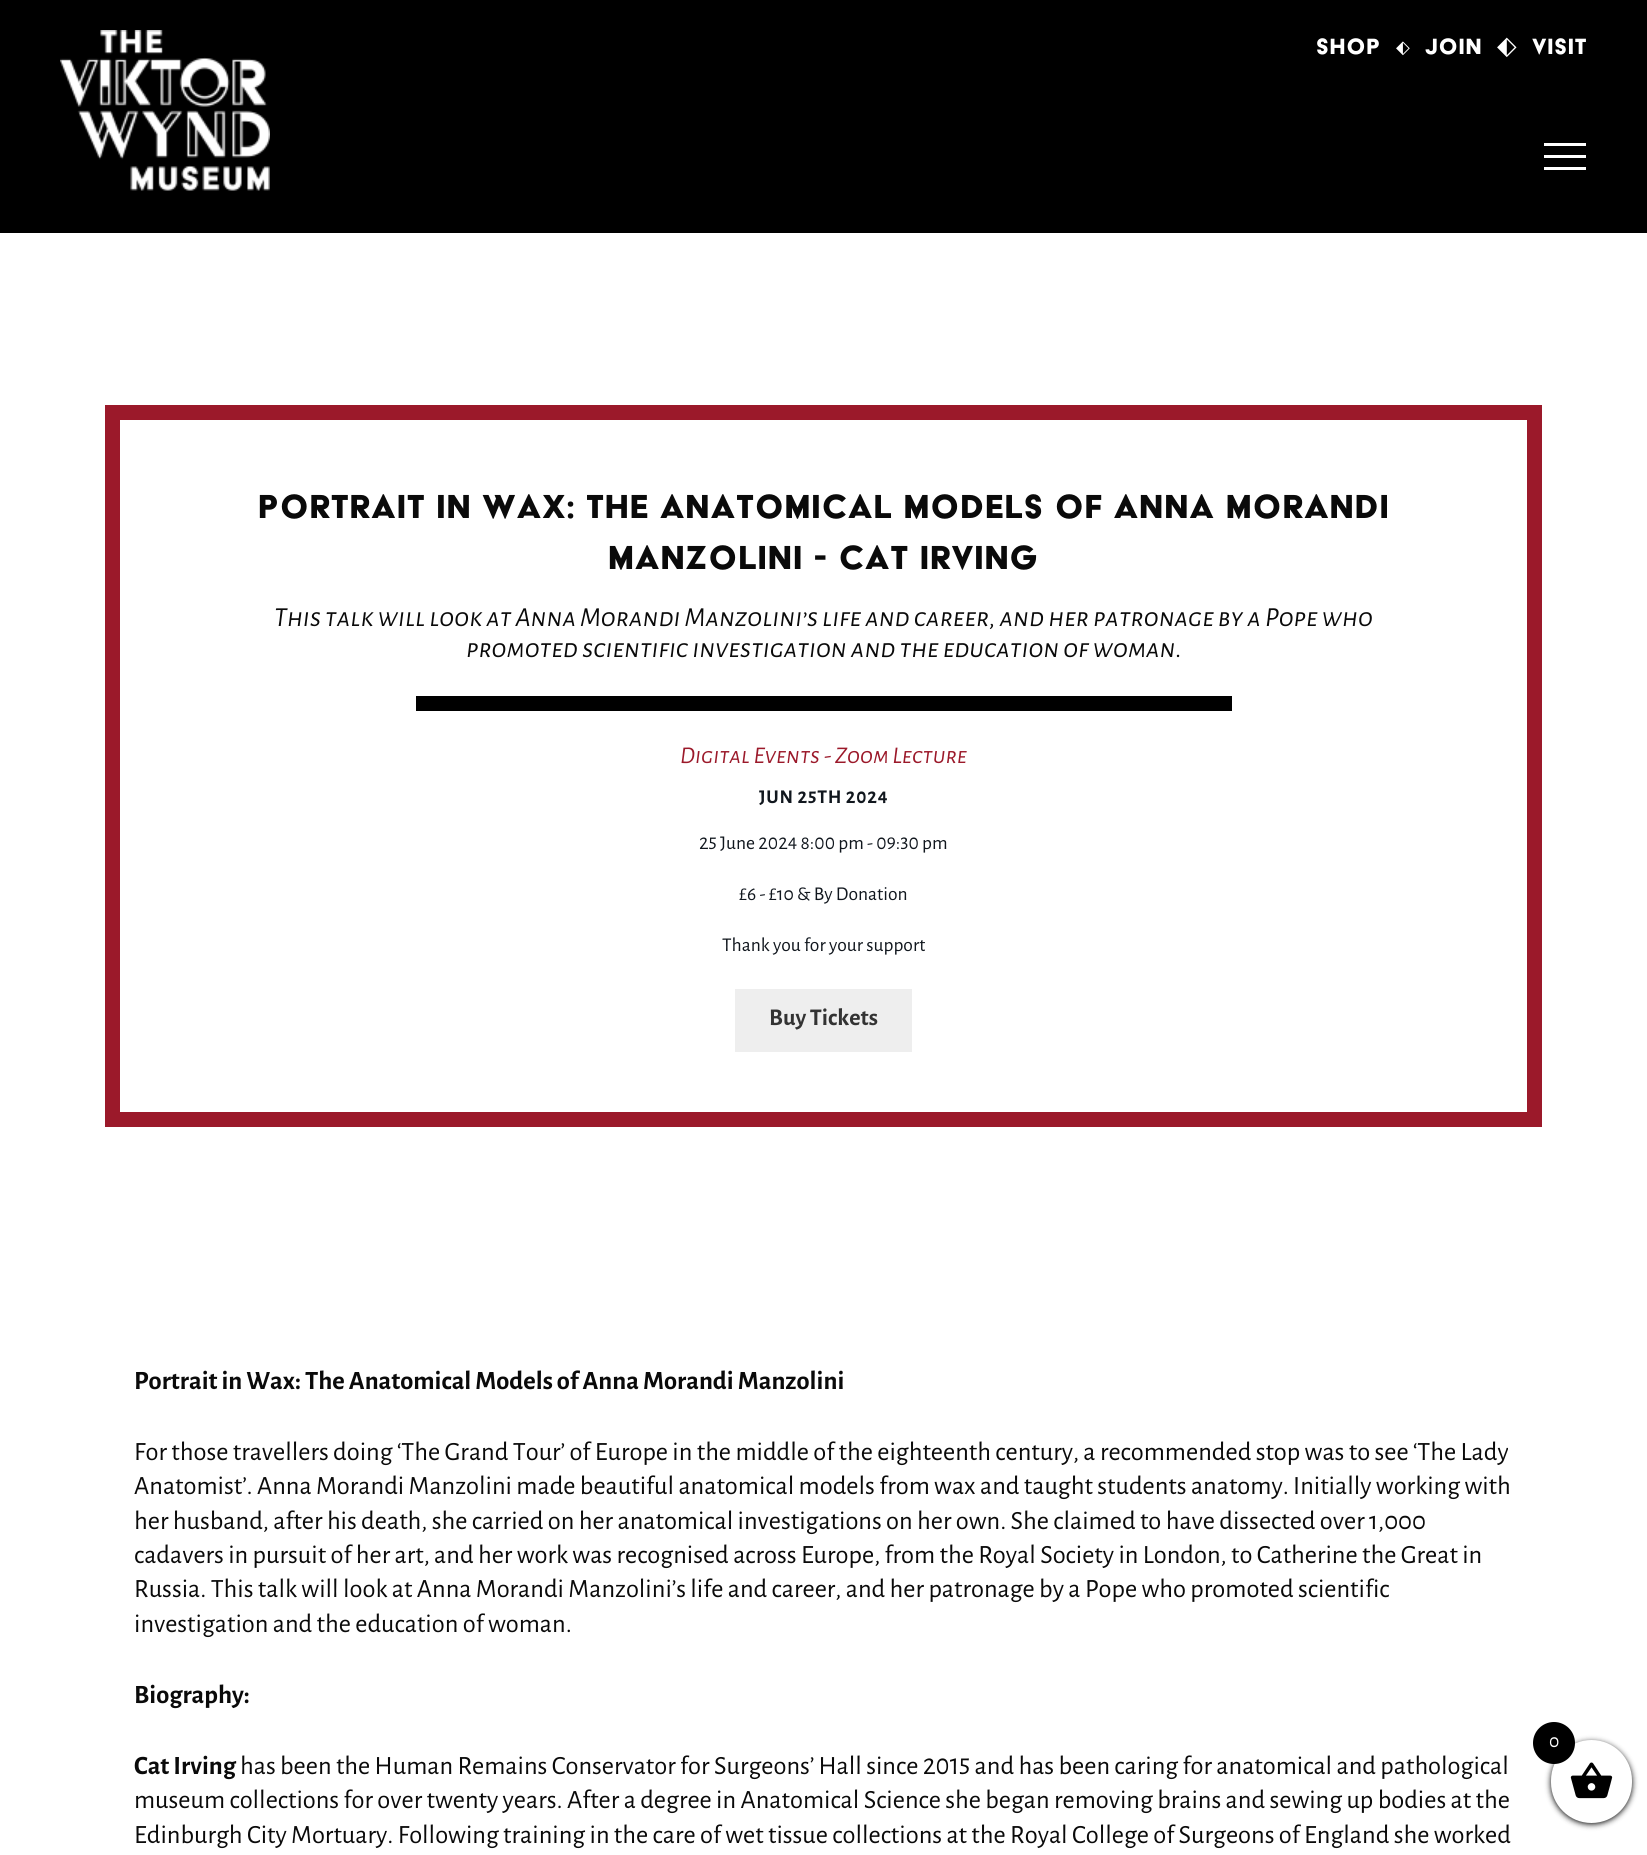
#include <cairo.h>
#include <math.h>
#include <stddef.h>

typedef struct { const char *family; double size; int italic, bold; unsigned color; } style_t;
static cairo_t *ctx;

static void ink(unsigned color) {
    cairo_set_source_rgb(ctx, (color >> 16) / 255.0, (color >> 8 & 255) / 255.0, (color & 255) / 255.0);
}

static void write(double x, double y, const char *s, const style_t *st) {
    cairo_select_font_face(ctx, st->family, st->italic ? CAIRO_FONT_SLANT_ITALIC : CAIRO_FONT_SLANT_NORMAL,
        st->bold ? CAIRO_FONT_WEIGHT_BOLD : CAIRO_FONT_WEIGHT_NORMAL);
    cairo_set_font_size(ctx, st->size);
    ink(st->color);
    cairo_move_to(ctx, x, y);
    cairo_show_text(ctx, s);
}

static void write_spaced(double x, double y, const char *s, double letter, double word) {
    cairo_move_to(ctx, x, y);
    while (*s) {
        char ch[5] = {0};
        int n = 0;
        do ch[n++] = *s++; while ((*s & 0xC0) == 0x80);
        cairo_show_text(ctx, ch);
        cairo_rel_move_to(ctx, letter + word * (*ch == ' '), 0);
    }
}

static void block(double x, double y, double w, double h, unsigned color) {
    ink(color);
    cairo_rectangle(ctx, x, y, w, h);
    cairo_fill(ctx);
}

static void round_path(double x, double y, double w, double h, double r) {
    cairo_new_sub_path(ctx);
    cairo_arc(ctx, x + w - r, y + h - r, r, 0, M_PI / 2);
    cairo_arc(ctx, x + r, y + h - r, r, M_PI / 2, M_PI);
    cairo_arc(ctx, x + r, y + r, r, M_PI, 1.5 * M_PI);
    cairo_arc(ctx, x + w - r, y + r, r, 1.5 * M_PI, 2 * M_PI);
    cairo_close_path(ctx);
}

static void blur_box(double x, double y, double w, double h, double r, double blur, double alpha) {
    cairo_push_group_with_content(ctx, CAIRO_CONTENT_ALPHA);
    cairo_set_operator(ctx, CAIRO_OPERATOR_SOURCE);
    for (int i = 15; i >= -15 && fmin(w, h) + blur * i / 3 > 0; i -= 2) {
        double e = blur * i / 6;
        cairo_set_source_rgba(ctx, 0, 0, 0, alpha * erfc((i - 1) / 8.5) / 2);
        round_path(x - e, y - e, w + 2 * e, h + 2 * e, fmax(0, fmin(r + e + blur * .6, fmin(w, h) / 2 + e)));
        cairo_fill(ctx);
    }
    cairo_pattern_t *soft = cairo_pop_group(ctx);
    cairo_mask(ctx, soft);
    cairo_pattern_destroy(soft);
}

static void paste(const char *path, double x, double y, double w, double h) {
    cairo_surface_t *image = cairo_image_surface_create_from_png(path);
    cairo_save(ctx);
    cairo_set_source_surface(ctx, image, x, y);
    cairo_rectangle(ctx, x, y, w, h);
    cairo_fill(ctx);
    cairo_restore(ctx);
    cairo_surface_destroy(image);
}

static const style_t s1 = {"DejaVu Sans", 18, 0, 0, 0xffffff};
static const style_t s2 = {"DejaVu Sans", 25.5, 0, 0, 0xffffff};
static const style_t s3 = {"Alegreya Sans SC", 27.6, 1, 0, 0x0a0a0a};
static const style_t s4 = {"Alegreya Sans SC", 24, 1, 0, 0x9b192a};
static const style_t s5 = {"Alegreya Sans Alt", 19.5, 0, 0, 0x11171e};
static const style_t s6 = {"Alegreya Sans", 19.5, 0, 0, 0x11171e};
static const style_t s7 = {"Alegreya Sans", 24, 0, 1, 0x333333};
static const style_t s8 = {"Alegreya Sans", 26.4, 0, 1, 0x0a0a0a};
static const style_t s9 = {"Alegreya Sans", 26.4, 0, 0, 0x0a0a0a};
static const style_t s10 = {"Alegreya Sans Alt", 26.4, 0, 0, 0x0a0a0a};
static const style_t s11 = {"Alegreya Sans", 19.5, 0, 0, 0xffffff};

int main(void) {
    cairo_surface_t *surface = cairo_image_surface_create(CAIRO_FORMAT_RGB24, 1647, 1855);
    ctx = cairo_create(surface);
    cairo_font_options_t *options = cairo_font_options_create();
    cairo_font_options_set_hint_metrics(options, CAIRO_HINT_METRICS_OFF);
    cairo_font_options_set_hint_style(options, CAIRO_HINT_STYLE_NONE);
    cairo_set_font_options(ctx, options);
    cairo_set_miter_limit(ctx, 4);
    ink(0xffffff);
    cairo_paint(ctx);
    block(0, 0, 1647, 233, 0x000000);
    paste("pic1.png", 60, 30, 210, 161);
    cairo_select_font_face(ctx, "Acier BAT", CAIRO_FONT_SLANT_NORMAL, CAIRO_FONT_WEIGHT_NORMAL);
    cairo_set_font_size(ctx, 25.5);
    ink(0xffffff);
    write_spaced(1316, 54, "SHOP", 0.75, 0);
    write(1396, 53, "⬖", &s1);
    cairo_select_font_face(ctx, "Acier BAT", CAIRO_FONT_SLANT_NORMAL, CAIRO_FONT_WEIGHT_NORMAL);
    cairo_set_font_size(ctx, 25.5);
    write_spaced(1425, 54, "JOIN", 0.75, 0);
    write(1497, 54, "⬖", &s2);
    cairo_select_font_face(ctx, "Acier BAT", CAIRO_FONT_SLANT_NORMAL, CAIRO_FONT_WEIGHT_NORMAL);
    write_spaced(1532, 54, "VISIT", 0.75, 0);
    block(1544, 143, 42, 3, 0xffffff);
    block(1544, 155, 42, 3, 0xffffff);
    block(1544, 167, 42, 3, 0xffffff);
    cairo_rectangle(ctx, 112.5, 412.5, 1422, 707);
    ink(0x9b192a);
    cairo_set_line_width(ctx, 15);
    cairo_stroke(ctx);
    cairo_set_font_size(ctx, 38.4);
    ink(0x0a0a0a);
    write_spaced(258, 518, "Portrait in Wax: The Anatomical Models of Anna Morandi", 0.92, 0);
    write_spaced(608, 569, "Manzolini - Cat Irving", 0.92, 0);
    write(274, 626, "This talk will look at Anna Morandi Manzolini’s life and career, and her patronage by a Pope who", &s3);
    write(466, 657, "promoted scientific investigation and the education of woman.", &s3);
    block(416, 696, 816, 15, 0x000000);
    write(680, 763, "Digital Events", &s4);
    write(824, 763, "- Zoom Lecture", &s4);
    cairo_select_font_face(ctx, "Alegreya Sans Alt", CAIRO_FONT_SLANT_NORMAL, CAIRO_FONT_WEIGHT_BOLD);
    cairo_set_font_size(ctx, 19.5);
    ink(0x11171e);
    write_spaced(759, 803, "JUN 25TH 2024", 0.75, 0);
    write(699, 849, "25 June 2024 8:00 pm - 09:30 pm", &s5);
    write(739, 900, "£6 - £10 & By Donation", &s6);
    write(722, 951, "Thank you for your support", &s6);
    block(735, 989, 177, 63, 0xeeeeee);
    write(769, 1025, "Buy Tickets", &s7);
    write(134, 1389, "Portrait in Wax: The Anatomical Models of Anna Morandi Manzolini", &s8);
    write(134, 1460, "For those travellers doing ‘The Grand Tour’ of Europe in the middle of the eighteenth century, a recommended stop was to see ‘The Lady", &s9);
    write(134, 1494, "Anatomist’. Anna Morandi Manzolini made beautiful anatomical models from wax and taught students anatomy. Initially working with", &s9);
    write(134, 1529, "her husband, after his death, she carried on her anatomical investigations on her own. She claimed to have dissected over 1,000", &s9);
    write(134, 1563, "cadavers in pursuit of her art, and her work was recognised across Europe, from the Royal Society in London, to Catherine the Great in", &s9);
    write(134, 1597, "Russia. This talk will look at Anna Morandi Manzolini’s life and career, and her patronage by a Pope who promoted scientific", &s9);
    write(134, 1632, "investigation and the education of woman.", &s9);
    write(134, 1703, "Biography:", &s8);
    write(134, 1774, "Cat Irving", &s8);
    write(240, 1774, "has been the Human Remains Conservator for Surgeons’ Hall since 2015 and has been caring for anatomical and pathological", &s10);
    write(134, 1808, "museum collections for over twenty years. After a degree in Anatomical Science she began removing brains and sewing up bodies at the", &s9);
    write(134, 1843, "Edinburgh City Mortuary. Following training in the care of wet tissue collections at the Royal College of Surgeons of England she worked", &s9);
    ink(0x000000);
    blur_box(1551, 1742, 81, 82, 40.5, 3, 1);
    ink(0xffffff);
    round_path(1551, 1740, 81, 83, 40.5);
    cairo_fill(ctx);
    ink(0x000000);
    cairo_arc(ctx, 1554, 1743, 21, 0, 2 * M_PI);
    cairo_fill(ctx);
    write(1549, 1747, "0", &s11);
    paste("pic2.png", 1570, 1762, 43, 37);
    cairo_surface_write_to_png(surface, "screenshot.png");
    cairo_font_options_destroy(options);
    cairo_destroy(ctx);
    cairo_surface_destroy(surface);
    return 0;
}
